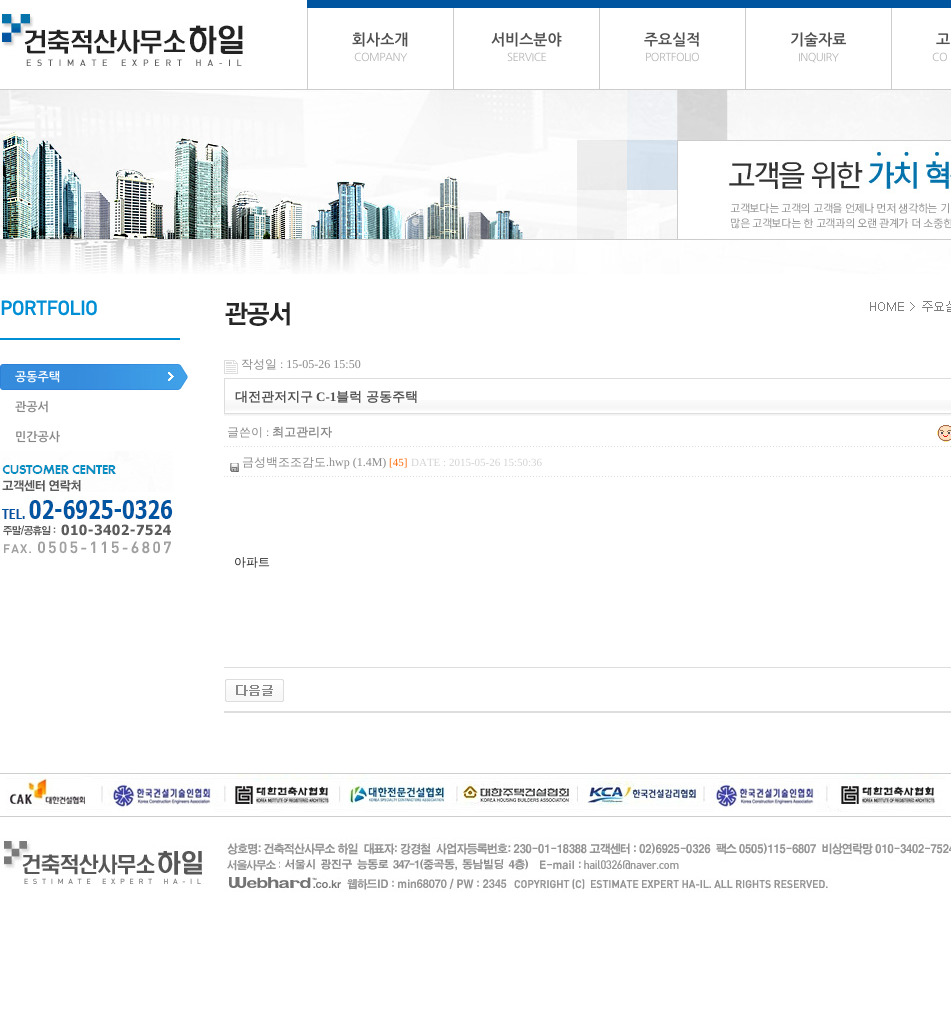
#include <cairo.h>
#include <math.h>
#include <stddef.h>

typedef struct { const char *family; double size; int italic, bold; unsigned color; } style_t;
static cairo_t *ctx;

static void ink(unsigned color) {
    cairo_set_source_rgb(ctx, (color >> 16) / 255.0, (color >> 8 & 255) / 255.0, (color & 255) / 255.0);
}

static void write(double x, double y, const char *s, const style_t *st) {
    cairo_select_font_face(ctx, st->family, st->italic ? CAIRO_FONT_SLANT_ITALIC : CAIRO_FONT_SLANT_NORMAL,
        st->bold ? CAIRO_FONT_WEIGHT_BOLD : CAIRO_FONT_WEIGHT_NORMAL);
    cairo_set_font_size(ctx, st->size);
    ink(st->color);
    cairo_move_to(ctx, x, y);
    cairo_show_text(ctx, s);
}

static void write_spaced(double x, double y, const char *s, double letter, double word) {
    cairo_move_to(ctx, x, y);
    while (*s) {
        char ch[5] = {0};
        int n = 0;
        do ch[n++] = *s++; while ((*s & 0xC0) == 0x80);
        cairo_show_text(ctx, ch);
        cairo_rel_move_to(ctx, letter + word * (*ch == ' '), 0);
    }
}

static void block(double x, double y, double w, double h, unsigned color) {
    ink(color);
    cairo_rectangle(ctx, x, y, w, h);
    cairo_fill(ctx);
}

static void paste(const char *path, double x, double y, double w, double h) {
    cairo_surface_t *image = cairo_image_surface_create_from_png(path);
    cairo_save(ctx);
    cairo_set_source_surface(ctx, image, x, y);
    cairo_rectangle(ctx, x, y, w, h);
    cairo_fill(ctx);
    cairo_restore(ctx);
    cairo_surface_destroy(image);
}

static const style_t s1 = {"NanumGothic", 15, 0, 1, 0x505050};
static const style_t s2 = {"NanumGothic", 12, 0, 1, 0xffffff};
static const style_t s3 = {"NanumGothic", 12, 0, 1, 0x888888};
static const style_t s4 = {"WenQuanYi Zen Hei Medium", 12, 0, 0, 0x888888};
static const style_t s5 = {"Liberation Serif", 12, 0, 0, 0x888888};
static const style_t s6 = {"WenQuanYi Zen Hei", 13, 0, 1, 0x505050};
static const style_t s7 = {"Liberation Serif", 13, 0, 1, 0x505050};
static const style_t s8 = {"WenQuanYi Zen Hei", 12, 0, 1, 0x888888};
static const style_t s9 = {"Liberation Serif", 11, 0, 0, 0xff6600};
static const style_t s10 = {"Liberation Serif", 11, 0, 0, 0xd3d3d3};
static const style_t s11 = {"WenQuanYi Zen Hei Medium", 12, 0, 0, 0x222222};

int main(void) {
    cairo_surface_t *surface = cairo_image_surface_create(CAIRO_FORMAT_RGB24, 951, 1030);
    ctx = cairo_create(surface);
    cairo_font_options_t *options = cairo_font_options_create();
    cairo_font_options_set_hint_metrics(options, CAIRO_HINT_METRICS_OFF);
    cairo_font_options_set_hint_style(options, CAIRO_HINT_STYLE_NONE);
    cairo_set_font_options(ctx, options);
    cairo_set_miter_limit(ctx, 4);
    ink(0xffffff);
    cairo_paint(ctx);
    paste("pic1.png", 0, 89, 951, 185);
    paste("pic2.png", 0, 12, 247, 56);
    block(307, 0, 584, 8, 0x0055a1);
    block(307, 8, 1, 82, 0xcccccc);
    write(352, 45, "회사소개", &s1);
    cairo_select_font_face(ctx, "NanumGothic", CAIRO_FONT_SLANT_NORMAL, CAIRO_FONT_WEIGHT_NORMAL);
    cairo_set_font_size(ctx, 11);
    ink(0xb4b4b4);
    write_spaced(354, 61, "COMPANY", -0.5, 0);
    block(453, 8, 1, 82, 0xcccccc);
    write(491, 45, "서비스분야", &s1);
    cairo_select_font_face(ctx, "NanumGothic", CAIRO_FONT_SLANT_NORMAL, CAIRO_FONT_WEIGHT_NORMAL);
    cairo_set_font_size(ctx, 11);
    ink(0xb4b4b4);
    write_spaced(507, 61, "SERVICE", -0.5, 0);
    block(599, 8, 1, 82, 0xcccccc);
    write(644, 45, "주요실적", &s1);
    cairo_select_font_face(ctx, "NanumGothic", CAIRO_FONT_SLANT_NORMAL, CAIRO_FONT_WEIGHT_NORMAL);
    cairo_set_font_size(ctx, 11);
    ink(0xb4b4b4);
    write_spaced(645, 61, "PORTFOLIO", -0.5, 0);
    block(745, 8, 1, 82, 0xcccccc);
    write(790, 45, "기술자료", &s1);
    cairo_select_font_face(ctx, "NanumGothic", CAIRO_FONT_SLANT_NORMAL, CAIRO_FONT_WEIGHT_NORMAL);
    cairo_set_font_size(ctx, 11);
    ink(0xb4b4b4);
    write_spaced(798, 61, "INQUIRY", -0.5, 0);
    ink(0x0055a1);
    cairo_new_path(ctx);
    cairo_move_to(ctx, 891, 0);
    cairo_line_to(ctx, 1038, 0);
    cairo_line_to(ctx, 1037, 8);
    cairo_line_to(ctx, 891, 8);
    cairo_close_path(ctx);
    cairo_fill(ctx);
    block(891, 8, 1, 82, 0xcccccc);
    write(936, 45, "고", &s1);
    cairo_select_font_face(ctx, "NanumGothic", CAIRO_FONT_SLANT_NORMAL, CAIRO_FONT_WEIGHT_NORMAL);
    cairo_set_font_size(ctx, 11);
    ink(0xb4b4b4);
    write_spaced(932, 61, "CO", -0.5, 0);
    paste("pic3.png", 0, 90, 951, 149);
    paste("pic4.png", 1, 300, 96, 16);
    block(0, 338, 180, 2, 0x008fd5);
    paste("pic5.png", 0, 364, 188, 26);
    write(15, 381, "공동주택", &s2);
    write(15, 411, "관공서", &s3);
    write(15, 441, "민간공사", &s3);
    paste("pic6.png", 0, 451, 173, 103);
    paste("pic7.png", 225, 301, 726, 25);
    paste("pic8.png", 224, 360, 14, 14);
    write(241, 368, "작성일", &s4);
    write(280, 368, ": 15-05-26 15:50", &s5);
    paste("pic9.png", 225, 400, 726, 11);
    cairo_rectangle(ctx, 224.5, 378.5, 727, 35);
    ink(0xdddddd);
    cairo_set_line_width(ctx, 1);
    cairo_stroke(ctx);
    write(235, 401, "대전관저지구", &s6);
    write(316, 401, "C-1", &s7);
    write(336, 401, "블럭 공동주택", &s6);
    paste("pic10.png", 224, 414, 727, 2);
    paste("pic11.png", 224, 446, 727, 1);
    write(227, 436, "글쓴이", &s4);
    write(266, 436, ":", &s5);
    write(272, 436, "최고관리자", &s8);
    paste("pic12.png", 937, 425, 14, 17);
    paste("pic11.png", 224, 476, 727, 1);
    paste("pic13.png", 230, 463, 9, 9);
    write(242, 466, "금성백조조감도", &s4);
    write(326, 466, ".hwp (1.4M)", &s5);
    write(389, 466, "[45]", &s9);
    write(411, 466, "DATE : 2015-05-26 15:50:36", &s10);
    write(234, 566, "아파트", &s11);
    block(224, 667, 727, 1, 0xdddddd);
    paste("pic14.png", 225, 679, 59, 23);
    block(224, 711, 727, 2, 0xdedede);
    block(0, 773, 951, 1, 0xcecece);
    block(0, 816, 951, 1, 0xcecece);
    paste("pic15.png", 6, 774, 939, 38);
    paste("pic16.png", 2, 837, 949, 55);
    cairo_surface_write_to_png(surface, "screenshot.png");
    cairo_font_options_destroy(options);
    cairo_destroy(ctx);
    cairo_surface_destroy(surface);
    return 0;
}
